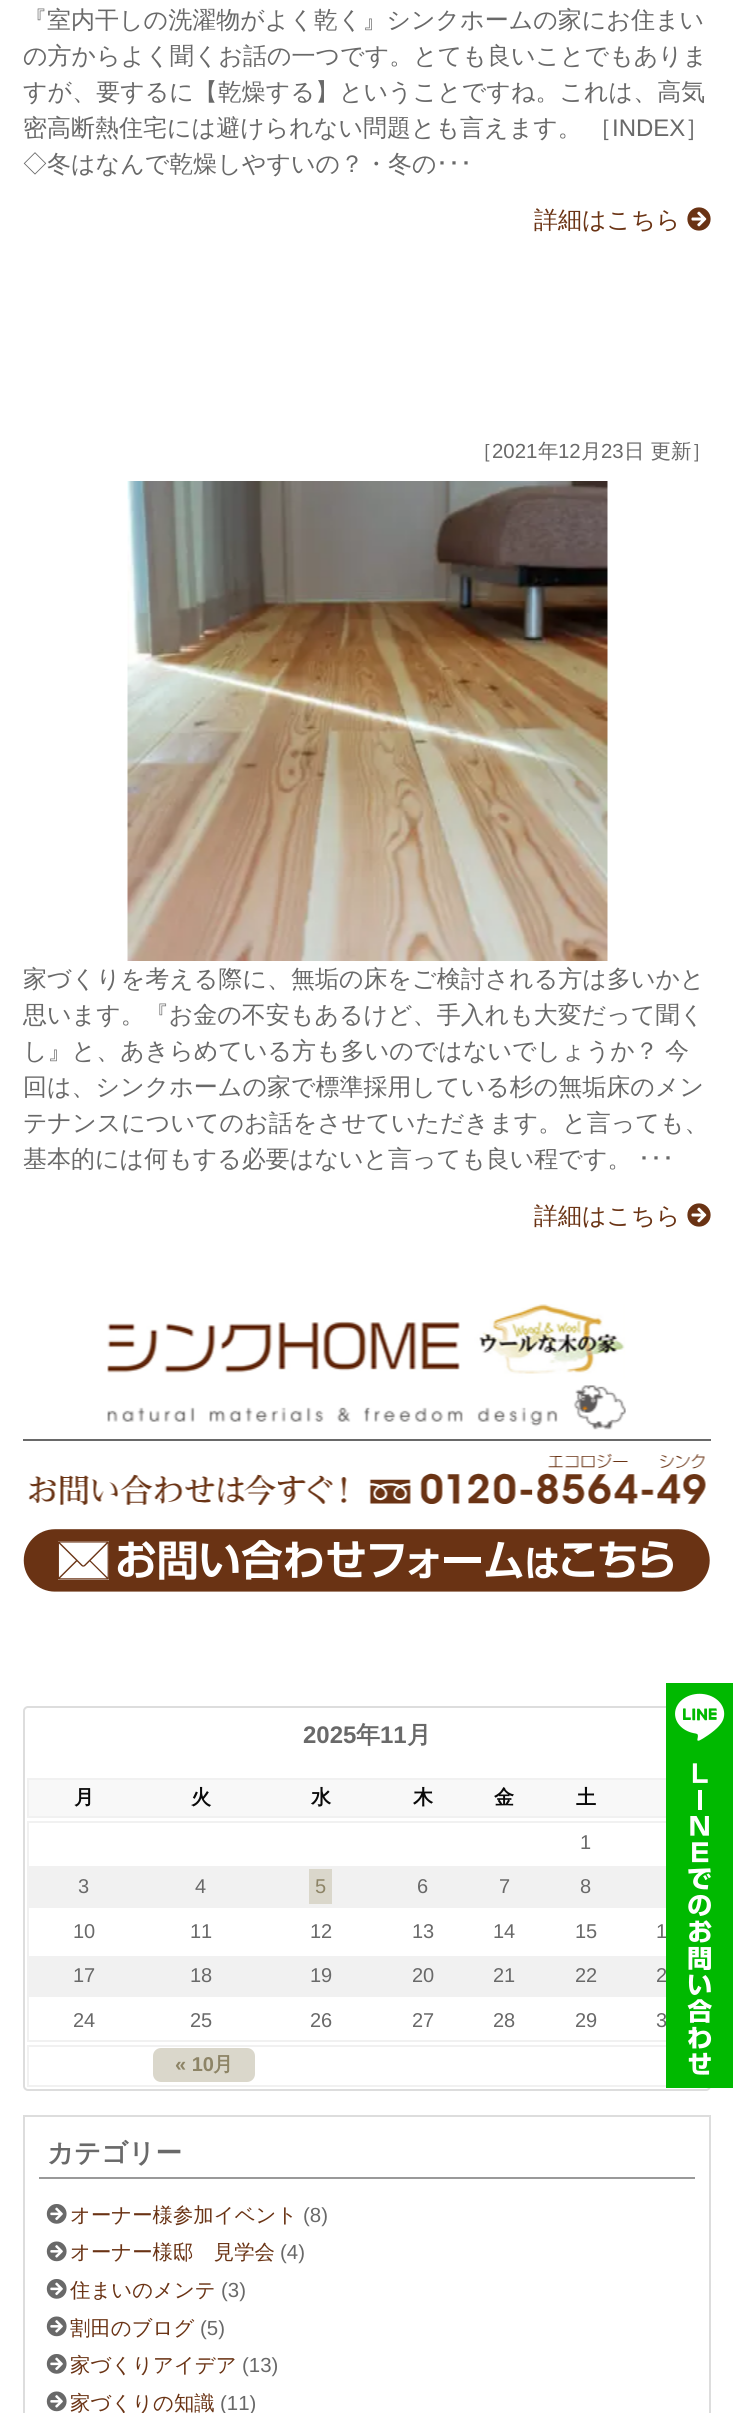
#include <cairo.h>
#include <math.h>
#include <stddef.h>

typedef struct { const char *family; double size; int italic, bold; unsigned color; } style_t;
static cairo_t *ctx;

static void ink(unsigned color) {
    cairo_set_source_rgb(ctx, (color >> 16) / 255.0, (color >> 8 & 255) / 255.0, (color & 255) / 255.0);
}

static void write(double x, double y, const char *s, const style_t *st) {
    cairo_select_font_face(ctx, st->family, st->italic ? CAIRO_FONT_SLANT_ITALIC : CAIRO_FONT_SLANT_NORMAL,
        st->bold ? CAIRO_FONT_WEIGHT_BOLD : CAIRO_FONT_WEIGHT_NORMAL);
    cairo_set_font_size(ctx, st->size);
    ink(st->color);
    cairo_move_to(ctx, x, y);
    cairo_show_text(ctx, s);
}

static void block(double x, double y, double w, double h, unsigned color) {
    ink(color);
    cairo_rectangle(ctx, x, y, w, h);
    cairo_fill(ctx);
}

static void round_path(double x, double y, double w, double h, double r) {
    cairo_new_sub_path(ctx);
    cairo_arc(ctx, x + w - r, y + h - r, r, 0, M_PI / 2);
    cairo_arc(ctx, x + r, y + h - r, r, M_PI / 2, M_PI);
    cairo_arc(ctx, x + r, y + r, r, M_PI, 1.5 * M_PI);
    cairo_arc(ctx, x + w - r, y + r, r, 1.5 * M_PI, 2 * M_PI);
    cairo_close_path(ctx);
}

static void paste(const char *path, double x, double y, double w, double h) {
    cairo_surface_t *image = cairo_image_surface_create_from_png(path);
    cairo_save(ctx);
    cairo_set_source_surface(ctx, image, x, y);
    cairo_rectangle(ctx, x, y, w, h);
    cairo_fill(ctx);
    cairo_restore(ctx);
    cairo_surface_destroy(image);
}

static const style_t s1 = {"WenQuanYi Zen Hei Medium", 24, 0, 0, 0x696969};
static const style_t s2 = {"Liberation Sans", 24, 0, 0, 0x696969};
static const style_t s3 = {"IPAPGothic", 24, 0, 0, 0x696969};
static const style_t s4 = {"WenQuanYi Zen Hei Medium", 24, 0, 0, 0x6a3314};
static const style_t s5 = {"WenQuanYi Zen Hei Medium", 20.4, 0, 0, 0x696969};
static const style_t s6 = {"Liberation Sans", 20.4, 0, 0, 0x696969};
static const style_t s7 = {"Liberation Sans", 24, 0, 1, 0x696969};
static const style_t s8 = {"WenQuanYi Zen Hei", 24, 0, 1, 0x696969};
static const style_t s9 = {"WenQuanYi Zen Hei", 20, 0, 1, 0x0a0a0a};
static const style_t s10 = {"Liberation Sans", 20, 0, 0, 0x696969};
static const style_t s11 = {"Liberation Sans", 20, 0, 0, 0x8d8466};
static const style_t s12 = {"Liberation Sans", 20, 0, 1, 0x8d8466};
static const style_t s13 = {"WenQuanYi Zen Hei", 20, 0, 1, 0x8d8466};
static const style_t s14 = {"WenQuanYi Zen Hei", 26.5, 0, 1, 0x696969};
static const style_t s15 = {"WenQuanYi Zen Hei Medium", 20.4, 0, 0, 0x6a3314};

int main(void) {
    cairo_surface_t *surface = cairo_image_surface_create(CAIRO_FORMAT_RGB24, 733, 2413);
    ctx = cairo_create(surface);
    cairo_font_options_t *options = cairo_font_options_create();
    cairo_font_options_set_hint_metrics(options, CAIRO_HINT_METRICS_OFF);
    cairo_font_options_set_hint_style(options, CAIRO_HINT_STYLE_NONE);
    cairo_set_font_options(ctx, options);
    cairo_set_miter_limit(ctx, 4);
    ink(0xffffff);
    cairo_paint(ctx);
    write(23, 28, "『室内干しの洗濯物がよく乾く』シンクホームの家にお住まい", &s1);
    write(23, 64, "の方からよく聞くお話の一つです。とても良いことでもありま", &s1);
    write(23, 100, "すが、要するに【乾燥する】ということですね。これは、高気", &s1);
    write(23, 136, "密高断熱住宅には避けられない問題とも言えます。", &s1);
    write(588, 136, "［", &s1);
    write(612, 136, "INDEX", &s2);
    write(685, 136, "］", &s1);
    write(23, 172, "◇冬はなんで乾燥しやすいの？・冬の", &s1);
    write(436, 172, "･･･", &s3);
    write(534, 228, "詳細はこちら", &s4);
    paste("pic1.png", 687, 207, 24, 24);
    write(472, 458, "［", &s5);
    write(492, 458, "2021", &s6);
    write(538, 458, "年", &s5);
    write(558, 458, "12", &s6);
    write(581, 458, "月", &s5);
    write(601, 458, "23", &s6);
    write(624, 458, "日 更新］", &s5);
    paste("pic2.png", 127, 481, 481, 480);
    write(23, 987, "家づくりを考える際に、無垢の床をご検討される方は多いかと", &s1);
    write(23, 1023, "思います。『お金の不安もあるけど、手入れも大変だって聞く", &s1);
    write(23, 1059, "し』と、あきらめている方も多いのではないでしょうか？", &s1);
    write(665, 1059, "今", &s1);
    write(23, 1095, "回は、シンクホームの家で標準採用している杉の無垢床のメン", &s1);
    write(23, 1131, "テナンスについてのお話をさせていただきます。と言っても、", &s1);
    write(23, 1167, "基本的には何もする必要はないと言っても良い程です。", &s1);
    write(638, 1167, "･･･", &s3);
    write(534, 1224, "詳細はこちら", &s4);
    paste("pic1.png", 687, 1203, 24, 24);
    block(23, 1439, 688, 2, 0x696969);
    paste("pic3.png", 107, 1304, 519, 126);
    paste("pic4.png", 28, 1453, 678, 52);
    paste("pic5.png", 23, 1529, 687, 63);
    round_path(24, 1707, 686, 383, 4);
    ink(0xdddddd);
    cairo_stroke(ctx);
    write(303, 1743, "2025", &s7);
    write(356, 1743, "年", &s8);
    write(380, 1743, "11", &s7);
    write(407, 1743, "月", &s8);
    block(29, 1780, 637, 36, 0xf8f8f8);
    cairo_rectangle(ctx, 28, 1779, 678, 38);
    ink(0xf1f1f1);
    cairo_stroke(ctx);
    write(74, 1804, "月", &s9);
    write(191, 1804, "火", &s9);
    write(311, 1804, "水", &s9);
    write(413, 1804, "木", &s9);
    write(494, 1804, "金", &s9);
    write(576, 1804, "土", &s9);
    cairo_rectangle(ctx, 28, 1822, 678, 219);
    ink(0xf1f1f1);
    cairo_stroke(ctx);
    write(580, 1849, "1", &s10);
    block(29, 1866, 637, 42, 0xf1f1f1);
    write(78, 1893, "3", &s10);
    write(195, 1893, "4", &s10);
    block(309, 1869, 23, 35, 0xdad7cb);
    write(315, 1893, "5", &s11);
    write(417, 1893, "6", &s10);
    write(499, 1893, "7", &s10);
    write(580, 1893, "8", &s10);
    write(73, 1938, "10", &s10);
    write(190, 1938, "11", &s10);
    write(310, 1938, "12", &s10);
    write(412, 1938, "13", &s10);
    write(493, 1938, "14", &s10);
    write(575, 1938, "15", &s10);
    write(656, 1938, "1", &s10);
    block(29, 1956, 637, 41, 0xf1f1f1);
    write(73, 1982, "17", &s10);
    write(190, 1982, "18", &s10);
    write(310, 1982, "19", &s10);
    write(412, 1982, "20", &s10);
    write(493, 1982, "21", &s10);
    write(575, 1982, "22", &s10);
    write(656, 1982, "2", &s10);
    write(73, 2027, "24", &s10);
    write(190, 2027, "25", &s10);
    write(310, 2027, "26", &s10);
    write(412, 2027, "27", &s10);
    write(493, 2027, "28", &s10);
    write(575, 2027, "29", &s10);
    write(656, 2027, "3", &s10);
    cairo_rectangle(ctx, 28, 2046, 678, 40);
    ink(0xf1f1f1);
    cairo_stroke(ctx);
    ink(0xdad7cb);
    round_path(153, 2048, 102, 34, 8);
    cairo_fill(ctx);
    write(175, 2071, "« 10", &s12);
    write(213, 2071, "月", &s13);
    cairo_rectangle(ctx, 24, 2116, 686, 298);
    ink(0xdddddd);
    cairo_stroke(ctx);
    block(39, 2177, 656, 2, 0x999999);
    write(47, 2162, "カテゴリー", &s14);
    paste("pic6.png", 46, 2204, 21, 20);
    write(70, 2222, "オーナー様参加イベント", &s15);
    write(303, 2222, "(8)", &s6);
    paste("pic7.png", 46, 2241, 21, 21);
    write(70, 2259, "オーナー様邸　見学会", &s15);
    write(280, 2259, "(4)", &s6);
    paste("pic6.png", 46, 2279, 21, 20);
    write(70, 2297, "住まいのメンテ", &s15);
    write(221, 2297, "(3)", &s6);
    paste("pic7.png", 46, 2316, 21, 21);
    write(70, 2335, "割田のブログ", &s15);
    write(200, 2335, "(5)", &s6);
    paste("pic6.png", 46, 2354, 21, 20);
    write(70, 2372, "家づくりアイデア", &s15);
    write(242, 2372, "(13)", &s6);
    paste("pic7.png", 46, 2391, 21, 21);
    write(70, 2410, "家づくりの知識", &s15);
    write(220, 2410, "(11)", &s6);
    paste("pic8.png", 666, 1683, 67, 405);
    cairo_surface_write_to_png(surface, "screenshot.png");
    cairo_font_options_destroy(options);
    cairo_destroy(ctx);
    cairo_surface_destroy(surface);
    return 0;
}
